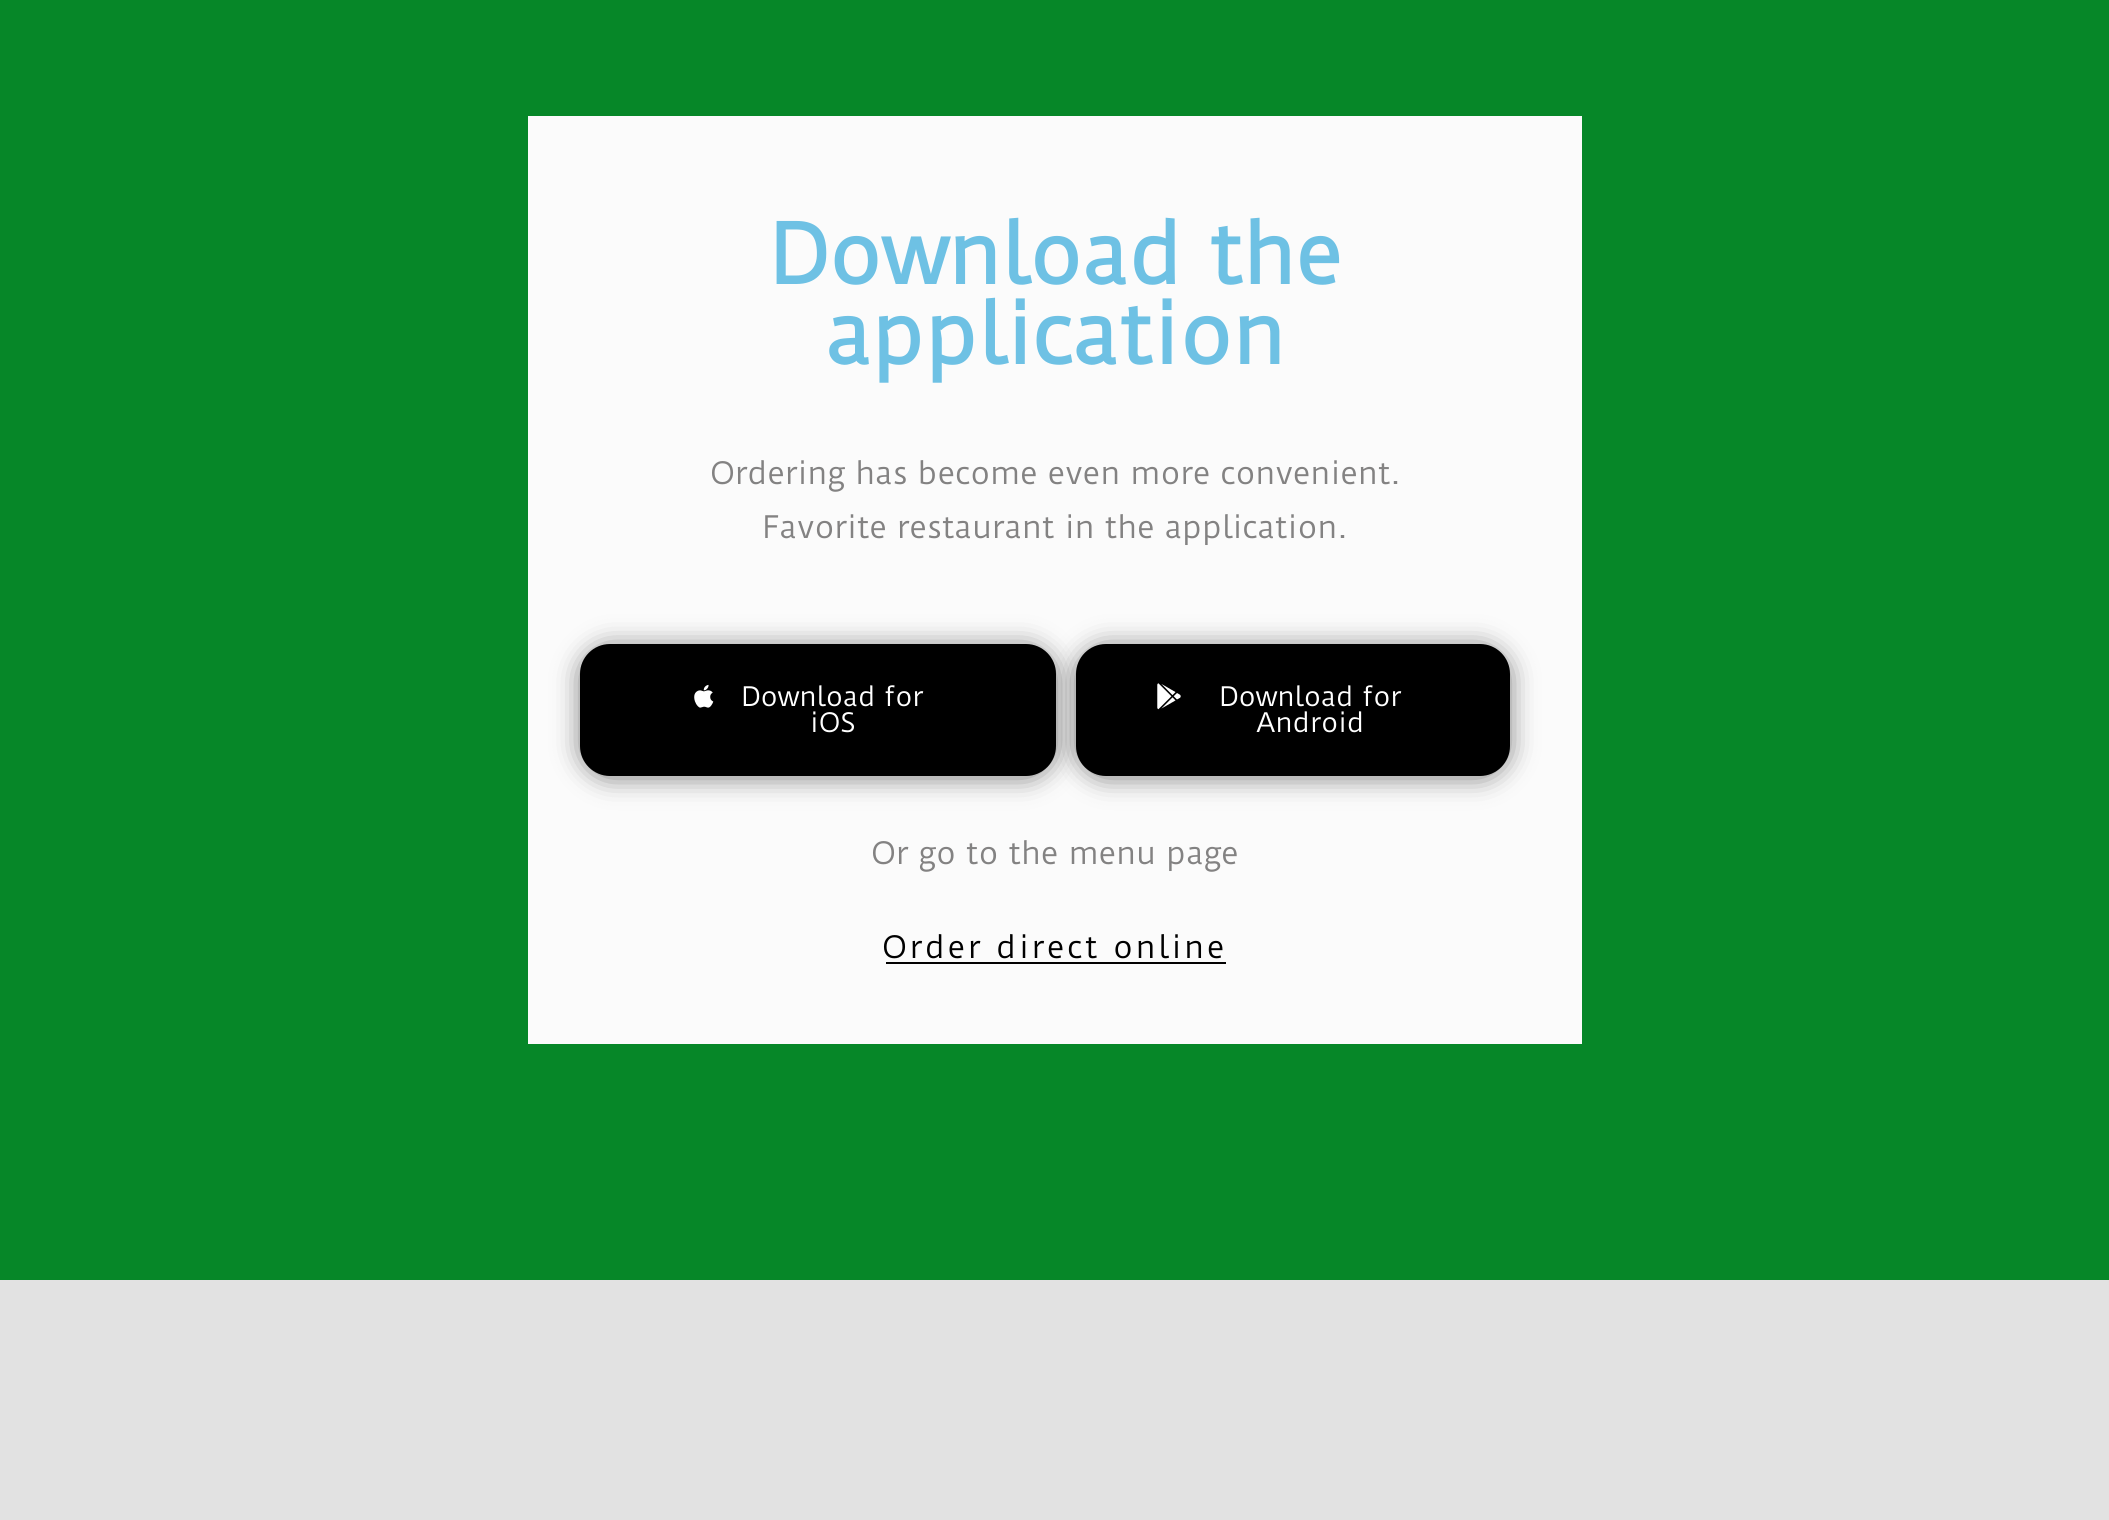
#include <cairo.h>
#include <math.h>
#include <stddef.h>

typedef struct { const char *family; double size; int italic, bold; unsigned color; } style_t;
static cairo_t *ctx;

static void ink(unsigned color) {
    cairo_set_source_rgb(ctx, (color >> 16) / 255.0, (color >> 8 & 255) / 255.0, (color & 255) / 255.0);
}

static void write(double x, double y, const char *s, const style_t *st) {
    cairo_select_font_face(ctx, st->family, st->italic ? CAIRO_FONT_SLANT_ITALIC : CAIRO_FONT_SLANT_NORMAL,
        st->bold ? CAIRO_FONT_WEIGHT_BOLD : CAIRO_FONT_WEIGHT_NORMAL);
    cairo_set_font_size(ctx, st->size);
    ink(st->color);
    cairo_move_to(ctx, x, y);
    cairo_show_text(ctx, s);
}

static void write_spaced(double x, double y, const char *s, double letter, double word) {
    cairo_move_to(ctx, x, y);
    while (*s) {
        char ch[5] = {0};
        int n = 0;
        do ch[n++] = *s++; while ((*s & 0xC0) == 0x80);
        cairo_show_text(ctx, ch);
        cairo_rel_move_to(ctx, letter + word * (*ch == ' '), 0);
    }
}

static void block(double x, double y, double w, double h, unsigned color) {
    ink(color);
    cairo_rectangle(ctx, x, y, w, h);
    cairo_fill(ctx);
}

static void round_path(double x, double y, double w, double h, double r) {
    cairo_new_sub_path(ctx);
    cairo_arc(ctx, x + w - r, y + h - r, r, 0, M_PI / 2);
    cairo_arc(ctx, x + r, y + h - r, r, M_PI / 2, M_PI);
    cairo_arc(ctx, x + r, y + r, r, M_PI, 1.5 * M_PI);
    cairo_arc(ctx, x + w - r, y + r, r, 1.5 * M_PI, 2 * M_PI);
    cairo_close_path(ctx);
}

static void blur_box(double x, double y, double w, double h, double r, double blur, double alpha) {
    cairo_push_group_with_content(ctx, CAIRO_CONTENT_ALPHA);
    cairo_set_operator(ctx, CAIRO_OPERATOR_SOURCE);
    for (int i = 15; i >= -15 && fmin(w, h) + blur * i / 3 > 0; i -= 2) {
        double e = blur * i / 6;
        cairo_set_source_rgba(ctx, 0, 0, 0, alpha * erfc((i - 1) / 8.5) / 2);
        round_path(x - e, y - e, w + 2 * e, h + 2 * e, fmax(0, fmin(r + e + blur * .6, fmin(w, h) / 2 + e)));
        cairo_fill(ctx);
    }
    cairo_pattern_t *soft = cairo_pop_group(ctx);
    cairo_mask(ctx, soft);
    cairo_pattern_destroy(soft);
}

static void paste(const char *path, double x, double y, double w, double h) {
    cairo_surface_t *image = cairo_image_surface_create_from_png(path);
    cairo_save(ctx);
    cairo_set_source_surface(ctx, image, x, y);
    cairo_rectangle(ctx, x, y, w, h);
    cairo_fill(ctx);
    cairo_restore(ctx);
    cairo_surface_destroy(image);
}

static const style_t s1 = {"Duru Sans", 80, 0, 1, 0x6ec1e4};
static const style_t s2 = {"Duru Sans", 30, 0, 0, 0x838282};
static const style_t s3 = {"Duru Sans", 26, 0, 0, 0xffffff};

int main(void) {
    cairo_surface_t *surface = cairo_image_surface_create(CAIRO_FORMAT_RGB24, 2109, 1520);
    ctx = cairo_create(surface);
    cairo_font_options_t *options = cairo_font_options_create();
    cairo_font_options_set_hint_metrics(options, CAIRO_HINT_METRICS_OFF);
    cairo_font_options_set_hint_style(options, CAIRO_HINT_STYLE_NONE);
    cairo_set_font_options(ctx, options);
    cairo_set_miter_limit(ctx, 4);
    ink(0xe2e2e2);
    cairo_paint(ctx);
    block(0, 0, 2109, 1280, 0x068728);
    block(528, 116, 1054, 928, 0xfbfbfb);
    write(768, 284, "Download the", &s1);
    write(825, 364, "application", &s1);
    write(710, 484, "Ordering has become even more convenient.", &s2);
    write(762, 538, "Favorite restaurant in the application.", &s2);
    ink(0x000000);
    blur_box(580, 646, 476, 132, 30, 13, 0.5);
    ink(0x000000);
    round_path(580, 644, 476, 132, 30);
    cairo_fill(ctx);
    paste("pic1.png", 694, 684, 20, 24);
    write(741, 706, "Download for", &s3);
    write(810, 732, "iOS", &s3);
    ink(0x000000);
    blur_box(1076, 646, 434, 132, 30, 13, 0.5);
    ink(0x000000);
    round_path(1076, 644, 434, 132, 30);
    cairo_fill(ctx);
    paste("pic2.png", 1157, 683, 24, 27);
    write(1219, 706, "Download for", &s3);
    write(1256, 732, "Android", &s3);
    write(871, 864, "Or go to the menu page", &s2);
    block(886, 962, 340, 2, 0x020101);
    ink(0x000000);
    write_spaced(882, 958, "Order direct online", 2.75, 0);
    cairo_surface_write_to_png(surface, "screenshot.png");
    cairo_font_options_destroy(options);
    cairo_destroy(ctx);
    cairo_surface_destroy(surface);
    return 0;
}
